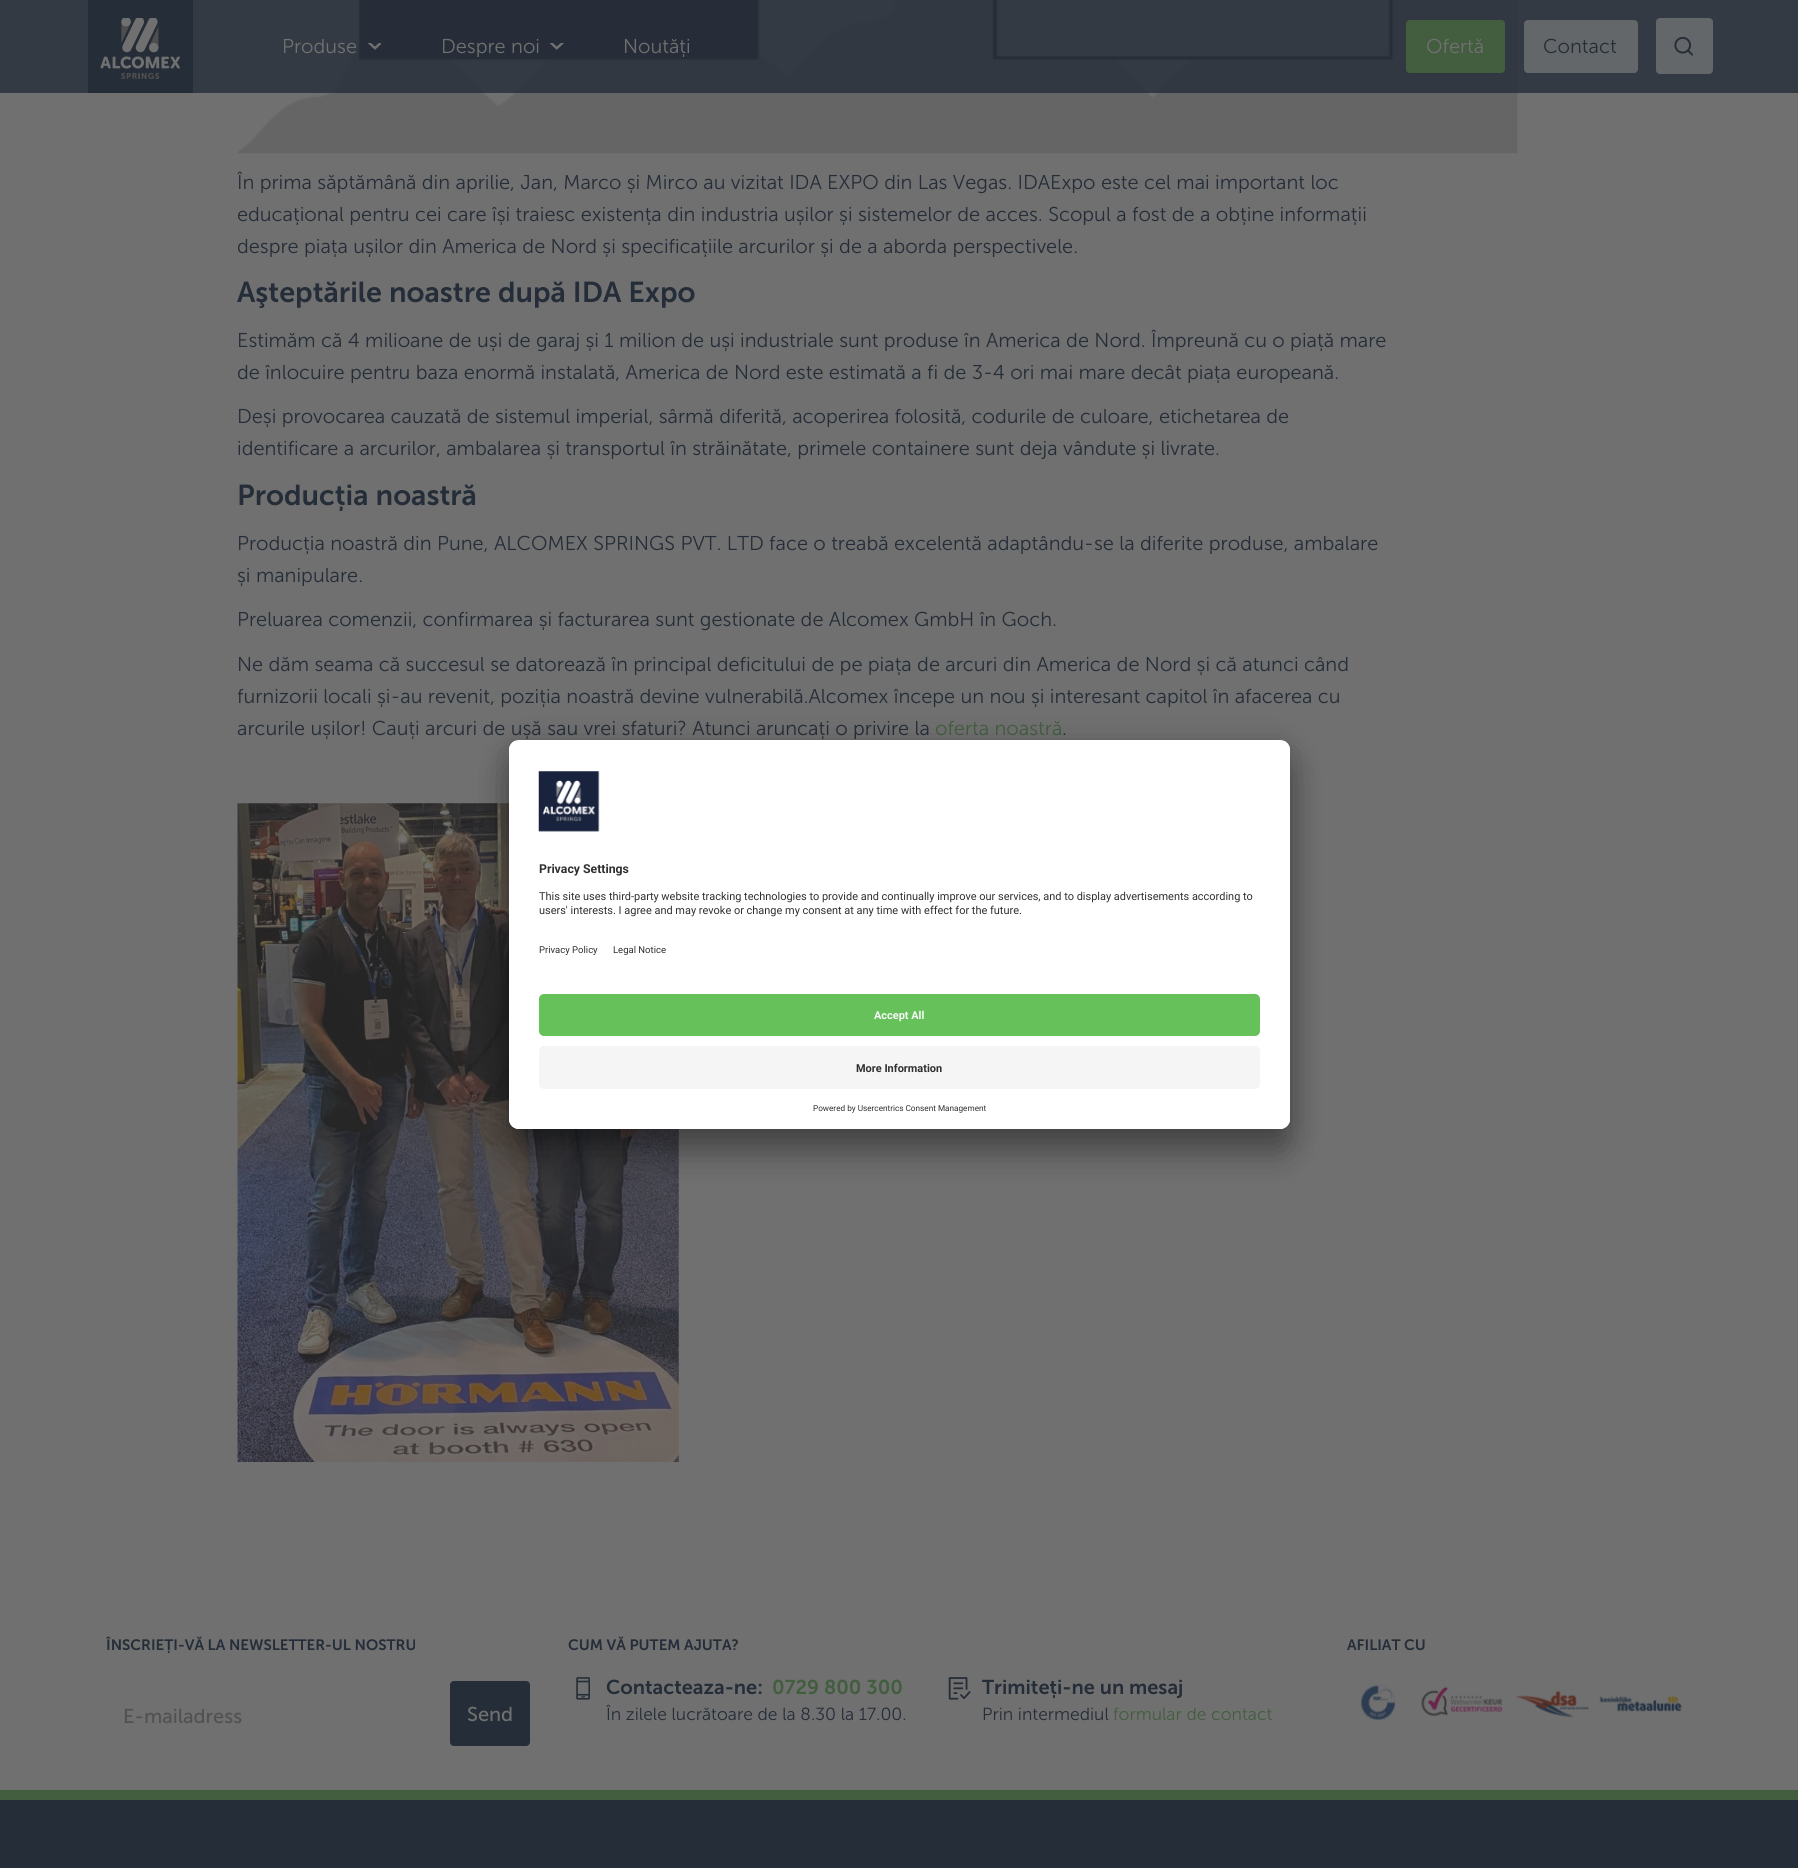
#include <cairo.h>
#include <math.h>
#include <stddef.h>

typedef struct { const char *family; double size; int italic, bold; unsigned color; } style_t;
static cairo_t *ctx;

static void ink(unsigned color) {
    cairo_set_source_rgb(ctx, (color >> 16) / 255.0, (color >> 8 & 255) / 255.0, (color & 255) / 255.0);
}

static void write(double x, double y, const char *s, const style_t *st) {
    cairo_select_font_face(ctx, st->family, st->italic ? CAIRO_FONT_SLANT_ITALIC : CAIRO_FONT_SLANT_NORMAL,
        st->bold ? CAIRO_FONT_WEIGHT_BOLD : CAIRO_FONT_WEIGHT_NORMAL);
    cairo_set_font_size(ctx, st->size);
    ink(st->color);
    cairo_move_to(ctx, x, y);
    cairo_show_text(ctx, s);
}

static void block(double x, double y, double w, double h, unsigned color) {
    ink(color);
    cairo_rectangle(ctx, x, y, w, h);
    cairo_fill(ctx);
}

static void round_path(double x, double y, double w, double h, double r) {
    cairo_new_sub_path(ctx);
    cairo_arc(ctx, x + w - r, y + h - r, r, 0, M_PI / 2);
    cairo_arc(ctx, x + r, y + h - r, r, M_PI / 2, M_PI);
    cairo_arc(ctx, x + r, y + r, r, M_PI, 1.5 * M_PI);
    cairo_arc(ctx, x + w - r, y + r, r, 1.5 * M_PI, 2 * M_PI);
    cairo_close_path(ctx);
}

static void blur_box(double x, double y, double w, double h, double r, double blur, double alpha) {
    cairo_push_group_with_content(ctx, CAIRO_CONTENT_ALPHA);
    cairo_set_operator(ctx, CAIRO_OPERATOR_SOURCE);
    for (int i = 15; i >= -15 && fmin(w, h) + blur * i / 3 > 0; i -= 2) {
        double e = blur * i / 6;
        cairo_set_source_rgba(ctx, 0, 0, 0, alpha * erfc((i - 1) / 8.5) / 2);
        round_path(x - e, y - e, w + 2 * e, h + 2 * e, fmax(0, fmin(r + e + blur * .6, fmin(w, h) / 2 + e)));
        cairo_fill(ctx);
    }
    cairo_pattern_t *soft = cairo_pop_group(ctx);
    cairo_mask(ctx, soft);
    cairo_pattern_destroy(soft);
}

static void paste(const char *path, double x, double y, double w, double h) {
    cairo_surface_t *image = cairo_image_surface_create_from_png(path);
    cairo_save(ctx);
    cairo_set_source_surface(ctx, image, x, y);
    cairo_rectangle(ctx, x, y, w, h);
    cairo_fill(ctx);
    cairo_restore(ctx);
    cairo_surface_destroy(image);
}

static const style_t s1 = {"Museo Sans Light", 20, 0, 0, 0x707070};
static const style_t s2 = {"Museo Sans Light", 20, 0, 0, 0x252d38};
static const style_t s3 = {"Museo Sans SemiBold", 28.75, 0, 0, 0x252d38};
static const style_t s4 = {"Museo Sans Light", 20, 0, 0, 0x425e3f};
static const style_t s5 = {"Roboto", 12.25, 0, 1, 0x303030};
static const style_t s6 = {"Roboto", 10.95, 0, 0, 0x303030};
static const style_t s7 = {"Roboto", 9.5, 0, 0, 0x303030};
static const style_t s8 = {"Roboto", 10.95, 0, 1, 0xfafafa};
static const style_t s9 = {"Roboto", 10.95, 0, 1, 0x303030};
static const style_t s10 = {"Roboto", 8.2, 0, 0, 0x303030};
static const style_t s11 = {"Museo Sans SemiBold", 15, 0, 0, 0x252d38};
static const style_t s12 = {"Museo Sans", 20, 0, 0, 0x515151};
static const style_t s13 = {"Museo Sans", 20, 0, 0, 0x707070};
static const style_t s14 = {"Museo Sans SemiBold", 20, 0, 0, 0x252d38};
static const style_t s15 = {"Museo Sans SemiBold", 20, 0, 0, 0x425e3f};
static const style_t s16 = {"Museo Sans Light", 17.5, 0, 0, 0x252d38};
static const style_t s17 = {"Museo Sans Light", 17.5, 0, 0, 0x425e3f};

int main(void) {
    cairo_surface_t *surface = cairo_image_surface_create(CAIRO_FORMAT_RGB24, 1798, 1868);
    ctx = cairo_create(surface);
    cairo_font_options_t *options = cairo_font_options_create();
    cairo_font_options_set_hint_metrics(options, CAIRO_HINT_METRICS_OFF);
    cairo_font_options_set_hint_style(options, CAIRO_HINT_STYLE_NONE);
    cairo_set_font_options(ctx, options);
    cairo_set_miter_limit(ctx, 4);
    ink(0x707070);
    cairo_paint(ctx);
    paste("pic5.png", 237, 0, 1281, 154);
    cairo_set_source_rgba(ctx, 0.145, 0.176, 0.22, 0.8);
    cairo_rectangle(ctx, 0, 0, 1798, 93);
    cairo_fill(ctx);
    block(88, 0, 105, 93, 0x252d38);
    paste("pic1.png", 100, 18, 80, 61);
    write(282, 53, "Produse", &s1);
    paste("pic2.png", 367, 43, 14, 7);
    write(441, 53, "Despre noi", &s1);
    paste("pic3.png", 550, 43, 14, 7);
    write(623, 53, "Noutăți", &s1);
    ink(0x425e3f);
    round_path(1406, 20, 99, 53, 4);
    cairo_fill(ctx);
    write(1426, 53, "Ofertă", &s1);
    ink(0x636769);
    round_path(1524, 20, 114, 53, 4);
    cairo_fill(ctx);
    write(1543, 53, "Contact", &s2);
    ink(0x636769);
    round_path(1656, 18, 57, 56, 4);
    cairo_fill(ctx);
    paste("pic4.png", 1674, 36, 20, 20);
    write(237, 189, "În prima săptămână din aprilie, Jan, Marco și Mirco au vizitat IDA EXPO din Las Vegas. IDAExpo este cel mai important loc", &s2);
    write(237, 221, "educațional pentru cei care își traiesc existența din industria ușilor și sistemelor de acces. Scopul a fost de a obține informații", &s2);
    write(237, 253, "despre piața ușilor din America de Nord și specificațiile arcurilor și de a aborda perspectivele.", &s2);
    write(237, 302, "Aşteptările noastre după IDA Expo", &s3);
    write(237, 347, "Estimăm că 4 milioane de uși de garaj și 1 milion de uși industriale sunt produse în America de Nord. Împreună cu o piață mare", &s2);
    write(237, 379, "de înlocuire pentru baza enormă instalată, America de Nord este estimată a fi de 3-4 ori mai mare decât piața europeană.", &s2);
    write(237, 423, "Deși provocarea cauzată de sistemul imperial, sârmă diferită, acoperirea folosită, codurile de culoare, etichetarea de", &s2);
    write(237, 455, "identificare a arcurilor, ambalarea și transportul în străinătate, primele containere sunt deja vândute și livrate.", &s2);
    write(237, 505, "Producția noastră", &s3);
    write(237, 550, "Producția noastră din Pune, ALCOMEX SPRINGS PVT. LTD face o treabă excelentă adaptându-se la diferite produse, ambalare", &s2);
    write(237, 582, "și manipulare.", &s2);
    write(237, 626, "Preluarea comenzii, confirmarea și facturarea sunt gestionate de Alcomex GmbH în Goch.", &s2);
    write(237, 671, "Ne dăm seama că succesul se datorează în principal deficitului de pe piața de arcuri din America de Nord și că atunci când", &s2);
    write(237, 703, "furnizorii locali și-au revenit, poziția noastră devine vulnerabilă.Alcomex începe un nou și interesant capitol în afacerea cu", &s2);
    write(237, 735, "arcurile ușilor! Cauți arcuri de ușă sau vrei sfaturi? Atunci aruncați o privire la", &s2);
    write(935, 735, "oferta noastră", &s4);
    write(1062, 735, ".", &s2);
    paste("pic6.png", 237, 803, 442, 659);
    ink(0x000000);
    blur_box(509, 765, 781, 389, 10, 17.5, 0.3);
    blur_box(509, 746, 781, 389, 10, 16, 0.22);
    ink(0xffffff);
    round_path(509, 740, 781, 389, 10);
    cairo_fill(ctx);
    cairo_save(ctx);
    round_path(509, 740, 781, 389, 10);
    cairo_clip(ctx);
    cairo_new_path(ctx);
    cairo_move_to(ctx, 519, 740);
    cairo_line_to(ctx, 1280, 740);
    cairo_curve_to(ctx, 1285.5, 740, 1290, 744.5, 1290, 750);
    cairo_line_to(ctx, 1290, 979);
    cairo_line_to(ctx, 509, 979);
    cairo_line_to(ctx, 509, 750);
    cairo_curve_to(ctx, 509, 744.5, 513.5, 740, 519, 740);
    cairo_close_path(ctx);
    cairo_clip(ctx);
    block(509, 741, 781, 238, 0xffffff);
    cairo_restore(ctx);
    paste("pic7.png", 538, 771, 62, 61);
    write(539, 873, "Privacy Settings", &s5);
    write(539, 900, "This site uses third-party website tracking technologies to provide and continually improve our services, and to display advertisements according to", &s6);
    write(539, 914, "users' interests. I agree and may revoke or change my consent at any time with effect for the future.", &s6);
    write(539, 953, "Privacy Policy", &s7);
    write(613, 953, "Legal Notice", &s7);
    ink(0xffffff);
    cairo_new_path(ctx);
    cairo_move_to(ctx, 509, 979);
    cairo_line_to(ctx, 1290, 979);
    cairo_line_to(ctx, 1290, 1119);
    cairo_curve_to(ctx, 1290, 1124.5, 1285.5, 1129, 1280, 1129);
    cairo_line_to(ctx, 519, 1129);
    cairo_curve_to(ctx, 513.5, 1129, 509, 1124.5, 509, 1119);
    cairo_close_path(ctx);
    cairo_fill(ctx);
    ink(0x66c15b);
    round_path(539, 994, 721, 42, 5);
    cairo_fill(ctx);
    write(874, 1019, "Accept All", &s8);
    ink(0xf5f5f5);
    round_path(539, 1046, 721, 43, 5);
    cairo_fill(ctx);
    write(856, 1072, "More Information", &s9);
    write(813, 1111, "Powered by Usercentrics Consent Management", &s10);
    write(106, 1650, "ÎNSCRIEȚI-VĂ LA NEWSLETTER-UL NOSTRU", &s11);
    write(123, 1723, "E-mailadress", &s12);
    ink(0x252d38);
    round_path(450, 1681, 80, 65, 4);
    cairo_fill(ctx);
    write(467, 1721, "Send", &s13);
    write(568, 1650, "CUM VĂ PUTEM AJUTA?", &s11);
    paste("pic8.png", 576, 1677, 14, 23);
    write(606, 1694, "Contacteaza-ne:", &s14);
    write(772, 1694, "0729 800 300", &s15);
    write(606, 1720, "În zilele lucrătoare de la 8.30 la 17.00.", &s16);
    paste("pic9.png", 948, 1677, 23, 23);
    write(982, 1694, "Trimiteți-ne un mesaj", &s14);
    write(982, 1720, "Prin intermediul", &s16);
    write(1113, 1720, "formular de contact", &s17);
    write(1347, 1650, "AFILIAT CU", &s11);
    paste("pic10.png", 1347, 1681, 346, 44);
    block(0, 1800, 1798, 68, 0x252d38);
    block(0, 1790, 1798, 10, 0x425e3f);
    cairo_surface_write_to_png(surface, "screenshot.png");
    cairo_font_options_destroy(options);
    cairo_destroy(ctx);
    cairo_surface_destroy(surface);
    return 0;
}
